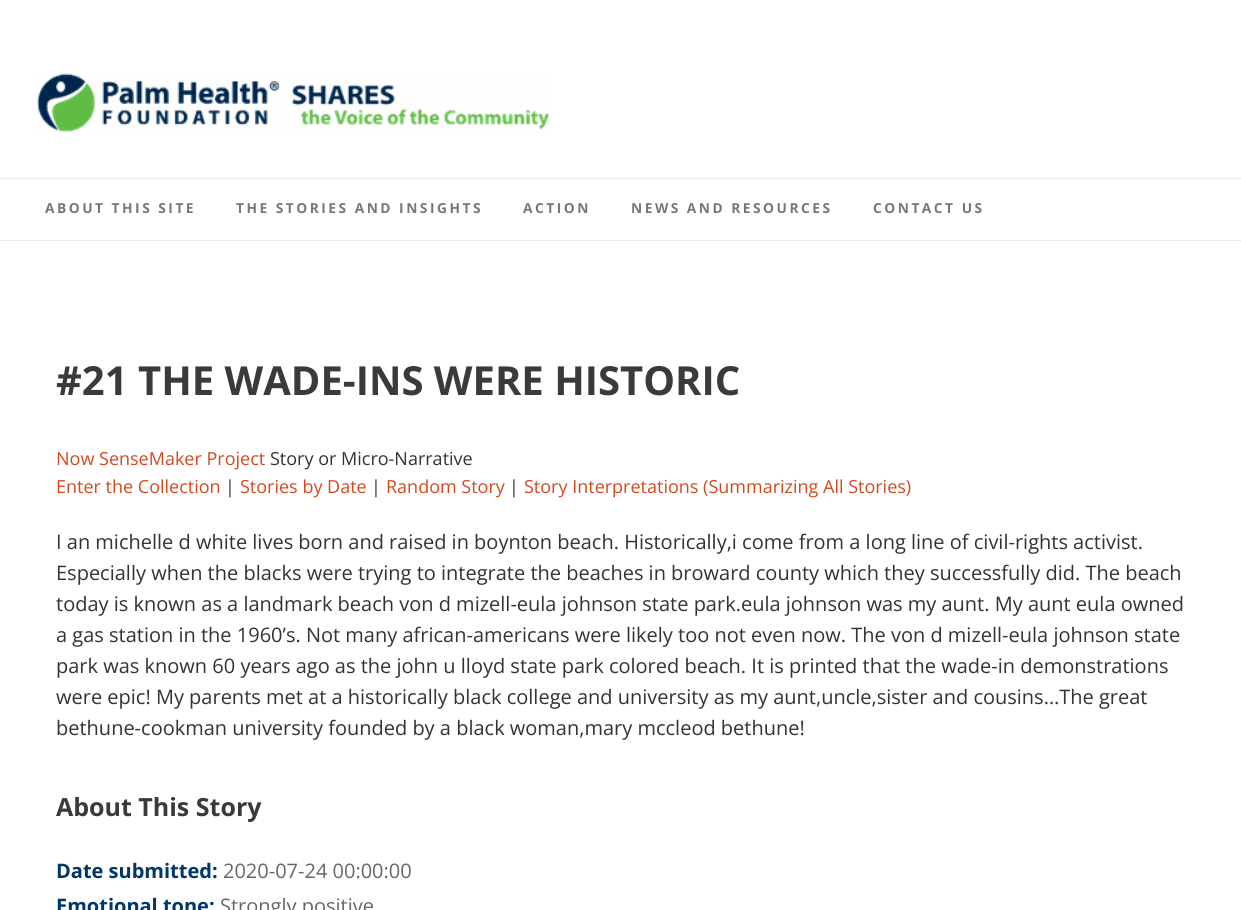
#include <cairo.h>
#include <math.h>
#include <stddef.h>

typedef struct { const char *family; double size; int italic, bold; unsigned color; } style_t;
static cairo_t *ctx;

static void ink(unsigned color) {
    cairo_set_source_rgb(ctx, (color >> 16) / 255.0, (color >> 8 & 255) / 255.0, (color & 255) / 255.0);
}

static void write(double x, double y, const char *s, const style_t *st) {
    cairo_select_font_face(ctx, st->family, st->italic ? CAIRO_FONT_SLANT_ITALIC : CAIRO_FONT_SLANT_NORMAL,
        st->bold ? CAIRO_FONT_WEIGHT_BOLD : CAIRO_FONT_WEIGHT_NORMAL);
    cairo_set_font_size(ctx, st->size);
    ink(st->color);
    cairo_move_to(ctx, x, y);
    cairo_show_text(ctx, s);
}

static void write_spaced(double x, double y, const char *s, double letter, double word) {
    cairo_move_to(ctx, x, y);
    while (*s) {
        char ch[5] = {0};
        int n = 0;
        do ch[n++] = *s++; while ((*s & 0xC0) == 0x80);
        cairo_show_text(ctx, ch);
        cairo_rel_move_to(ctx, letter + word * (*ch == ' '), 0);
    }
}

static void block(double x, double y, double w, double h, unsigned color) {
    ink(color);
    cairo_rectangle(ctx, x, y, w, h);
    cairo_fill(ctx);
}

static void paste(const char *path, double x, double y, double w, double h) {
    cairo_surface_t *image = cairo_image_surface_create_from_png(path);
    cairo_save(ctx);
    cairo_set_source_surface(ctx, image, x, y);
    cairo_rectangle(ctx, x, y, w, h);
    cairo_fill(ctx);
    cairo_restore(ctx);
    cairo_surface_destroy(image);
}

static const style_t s1 = {"Open Sans", 40, 0, 1, 0x3a3a3a};
static const style_t s2 = {"Open Sans", 18, 0, 0, 0xd3491f};
static const style_t s3 = {"Open Sans", 18, 0, 0, 0x333333};
static const style_t s4 = {"Open Sans", 20, 0, 0, 0x333333};
static const style_t s5 = {"Open Sans", 25, 0, 1, 0x3a3a3a};
static const style_t s6 = {"Open Sans", 20, 0, 1, 0x003768};
static const style_t s7 = {"Open Sans", 20, 0, 0, 0x666666};

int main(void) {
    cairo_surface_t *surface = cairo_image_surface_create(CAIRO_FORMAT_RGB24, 1241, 910);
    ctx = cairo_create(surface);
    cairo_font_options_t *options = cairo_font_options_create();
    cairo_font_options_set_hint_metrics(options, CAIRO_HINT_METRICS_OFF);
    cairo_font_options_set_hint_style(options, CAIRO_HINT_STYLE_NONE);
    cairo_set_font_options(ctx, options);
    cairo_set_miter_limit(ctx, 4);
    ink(0xffffff);
    cairo_paint(ctx);
    paste("pic1.png", 37, 73, 512, 61);
    block(0, 178, 1241, 1, 0xebebeb);
    block(0, 240, 1241, 1, 0xebebeb);
    cairo_select_font_face(ctx, "Open Sans", CAIRO_FONT_SLANT_NORMAL, CAIRO_FONT_WEIGHT_BOLD);
    cairo_set_font_size(ctx, 13.75);
    ink(0x777777);
    write_spaced(45, 213, "ABOUT THIS SITE", 2.5, 0);
    write_spaced(236, 213, "THE STORIES AND INSIGHTS", 2.5, 0);
    write_spaced(523, 213, "ACTION", 2.5, 0);
    write_spaced(631, 213, "NEWS AND RESOURCES", 2.5, 0);
    write_spaced(873, 213, "CONTACT US", 2.5, 0);
    write(56, 395, "#21 THE WADE-INS WERE HISTORIC", &s1);
    write(56, 465, "Now SenseMaker Project", &s2);
    write(270, 465, "Story or Micro-Narrative", &s3);
    write(56, 493, "Enter the Collection", &s2);
    write(225, 493, "|", &s3);
    write(240, 493, "Stories by Date", &s2);
    write(371, 493, "|", &s3);
    write(386, 493, "Random Story", &s2);
    write(509, 493, "|", &s3);
    write(524, 493, "Story Interpretations (Summarizing All Stories)", &s2);
    write(56, 549, "I an michelle d white lives born and raised in boynton beach. Historically,i come from a long line of civil-rights activist.", &s4);
    write(56, 580, "Especially when the blacks were trying to integrate the beaches in broward county which they successfully did. The beach", &s4);
    write(56, 611, "today is known as a landmark beach von d mizell-eula johnson state park.eula johnson was my aunt. My aunt eula owned", &s4);
    write(56, 642, "a gas station in the 1960’s. Not many african-americans were likely too not even now. The von d mizell-eula johnson state", &s4);
    write(56, 673, "park was known 60 years ago as the john u lloyd state park colored beach. It is printed that the wade-in demonstrations", &s4);
    write(56, 704, "were epic! My parents met at a historically black college and university as my aunt,uncle,sister and cousins…The great", &s4);
    write(56, 735, "bethune-cookman university founded by a black woman,mary mccleod bethune!", &s4);
    write(56, 816, "About This Story", &s5);
    write(56, 878, "Date submitted:", &s6);
    write(223, 878, "2020-07-24 00:00:00", &s7);
    write(56, 913, "Emotional tone:", &s6);
    write(220, 913, "Strongly positive", &s7);
    cairo_surface_write_to_png(surface, "screenshot.png");
    cairo_font_options_destroy(options);
    cairo_destroy(ctx);
    cairo_surface_destroy(surface);
    return 0;
}
